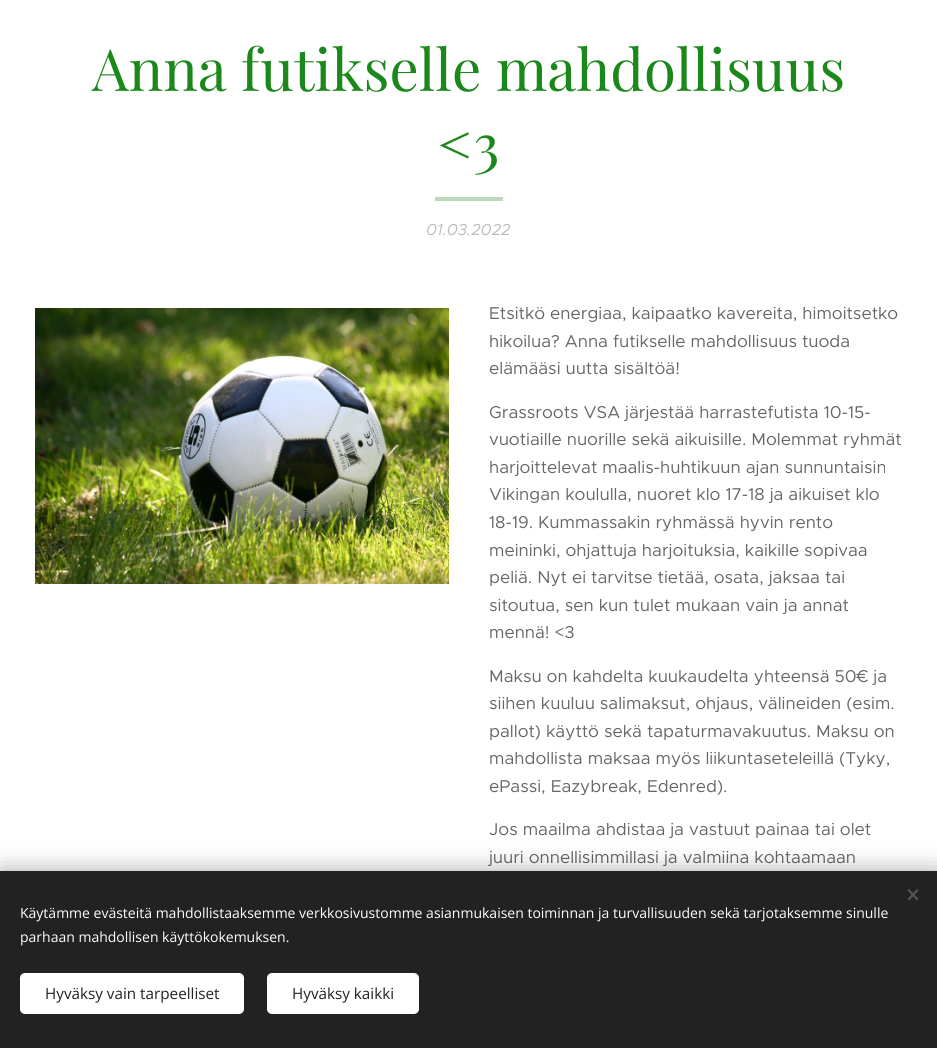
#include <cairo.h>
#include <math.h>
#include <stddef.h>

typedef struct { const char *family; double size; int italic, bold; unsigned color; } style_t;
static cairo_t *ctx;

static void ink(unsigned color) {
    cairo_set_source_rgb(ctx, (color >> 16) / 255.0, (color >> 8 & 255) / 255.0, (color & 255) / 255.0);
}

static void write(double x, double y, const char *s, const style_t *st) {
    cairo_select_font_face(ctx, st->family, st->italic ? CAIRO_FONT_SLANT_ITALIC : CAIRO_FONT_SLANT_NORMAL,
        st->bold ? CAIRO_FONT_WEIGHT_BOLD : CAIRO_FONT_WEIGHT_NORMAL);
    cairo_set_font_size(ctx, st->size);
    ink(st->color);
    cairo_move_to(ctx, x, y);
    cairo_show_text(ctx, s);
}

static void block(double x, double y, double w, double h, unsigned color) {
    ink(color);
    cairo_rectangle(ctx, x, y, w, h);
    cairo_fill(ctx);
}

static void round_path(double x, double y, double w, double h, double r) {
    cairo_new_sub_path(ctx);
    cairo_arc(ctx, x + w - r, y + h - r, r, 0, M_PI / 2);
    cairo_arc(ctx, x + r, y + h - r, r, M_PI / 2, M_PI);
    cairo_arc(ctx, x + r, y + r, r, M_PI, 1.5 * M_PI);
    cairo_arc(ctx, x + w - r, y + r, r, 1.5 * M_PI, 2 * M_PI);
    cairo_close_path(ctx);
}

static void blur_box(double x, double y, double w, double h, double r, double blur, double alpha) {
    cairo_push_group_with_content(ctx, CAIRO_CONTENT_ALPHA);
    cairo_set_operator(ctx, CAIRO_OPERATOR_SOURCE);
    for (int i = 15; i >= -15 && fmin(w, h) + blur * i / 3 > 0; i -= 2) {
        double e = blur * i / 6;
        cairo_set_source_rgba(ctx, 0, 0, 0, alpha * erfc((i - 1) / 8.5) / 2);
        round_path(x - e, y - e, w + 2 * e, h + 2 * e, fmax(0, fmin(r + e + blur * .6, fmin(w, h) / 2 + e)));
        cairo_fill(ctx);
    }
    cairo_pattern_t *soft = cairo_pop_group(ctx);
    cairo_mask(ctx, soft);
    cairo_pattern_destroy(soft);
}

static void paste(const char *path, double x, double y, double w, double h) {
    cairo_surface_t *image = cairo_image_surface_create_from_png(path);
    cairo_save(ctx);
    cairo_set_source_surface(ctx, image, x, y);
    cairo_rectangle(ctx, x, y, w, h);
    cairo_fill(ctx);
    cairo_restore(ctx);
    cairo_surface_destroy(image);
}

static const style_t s1 = {"Playfair Display", 58, 0, 0, 0x1a881a};
static const style_t s2 = {"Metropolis", 16, 1, 0, 0xbababa};
static const style_t s3 = {"Metropolis", 17.2, 0, 0, 0x666666};
static const style_t s4 = {"Open Sans", 14, 0, 0, 0xffffff};
static const style_t s5 = {"Open Sans", 15.25, 0, 0, 0x222222};

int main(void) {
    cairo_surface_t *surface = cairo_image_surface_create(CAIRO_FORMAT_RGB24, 937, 1048);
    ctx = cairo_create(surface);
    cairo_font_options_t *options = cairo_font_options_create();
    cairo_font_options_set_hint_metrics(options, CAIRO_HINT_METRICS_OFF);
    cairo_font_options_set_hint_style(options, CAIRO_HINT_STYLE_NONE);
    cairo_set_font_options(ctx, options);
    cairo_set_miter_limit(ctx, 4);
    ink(0xffffff);
    cairo_paint(ctx);
    write(92, 91, "Anna futikselle mahdollisuus", &s1);
    write(438, 166, "<3", &s1);
    block(435, 197, 68, 4, 0xbadbba);
    write(426, 235, "01.03.2022", &s2);
    paste("pic1.png", 35, 308, 414, 276);
    write(489, 319, "Etsitkö energiaa, kaipaatko kavereita, himoitsetko", &s3);
    write(489, 347, "hikoilua? Anna futikselle mahdollisuus tuoda", &s3);
    write(489, 374, "elämääsi uutta sisältöä!", &s3);
    write(489, 418, "Grassroots VSA järjestää harrastefutista 10-15-", &s3);
    write(489, 445, "vuotiaille nuorille sekä aikuisille. Molemmat ryhmät", &s3);
    write(489, 473, "harjoittelevat maalis-huhtikuun ajan sunnuntaisin", &s3);
    write(489, 500, "Vikingan koululla, nuoret klo 17-18 ja aikuiset klo", &s3);
    write(489, 528, "18-19. Kummassakin ryhmässä hyvin rento", &s3);
    write(489, 556, "meininki, ohjattuja harjoituksia, kaikille sopivaa", &s3);
    write(489, 583, "peliä. Nyt ei tarvitse tietää, osata, jaksaa tai", &s3);
    write(489, 611, "sitoutua, sen kun tulet mukaan vain ja annat", &s3);
    write(489, 638, "mennä! <3", &s3);
    write(489, 682, "Maksu on kahdelta kuukaudelta yhteensä 50€ ja", &s3);
    write(489, 709, "siihen kuuluu salimaksut, ohjaus, välineiden (esim.", &s3);
    write(489, 737, "pallot) käyttö sekä tapaturmavakuutus. Maksu on", &s3);
    write(489, 764, "mahdollista maksaa myös liikuntaseteleillä (Tyky,", &s3);
    write(489, 792, "ePassi, Eazybreak, Edenred).", &s3);
    write(489, 835, "Jos maailma ahdistaa ja vastuut painaa tai olet", &s3);
    write(489, 863, "juuri onnellisimmillasi ja valmiina kohtaamaan", &s3);
    ink(0x000000);
    blur_box(0, 871, 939, 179, 0, 12.5, 0.33);
    block(0, 871, 937, 177, 0x222222);
    ink(0x555555);
    cairo_new_path(ctx);
    cairo_move_to(ctx, 907.5, 899);
    cairo_line_to(ctx, 917, 889);
    cairo_line_to(ctx, 918.5, 890.5);
    cairo_line_to(ctx, 909, 900.5);
    cairo_close_path(ctx);
    cairo_fill(ctx);
    cairo_new_path(ctx);
    cairo_move_to(ctx, 909, 889);
    cairo_line_to(ctx, 918.5, 899);
    cairo_line_to(ctx, 917, 900.5);
    cairo_line_to(ctx, 907.5, 890.5);
    cairo_close_path(ctx);
    cairo_fill(ctx);
    write(20, 918, "Käytämme evästeitä mahdollistaaksemme verkkosivustomme asianmukaisen toiminnan ja turvallisuuden sekä tarjotaksemme sinulle", &s4);
    write(20, 942, "parhaan mahdollisen käyttökokemuksen.", &s4);
    round_path(20, 973, 224, 41, 5);
    cairo_fill(ctx);
    write(45, 999, "Hyväksy vain tarpeelliset", &s5);
    ink(0xffffff);
    round_path(267, 973, 152, 41, 5);
    cairo_fill(ctx);
    write(292, 999, "Hyväksy kaikki", &s5);
    cairo_surface_write_to_png(surface, "screenshot.png");
    cairo_font_options_destroy(options);
    cairo_destroy(ctx);
    cairo_surface_destroy(surface);
    return 0;
}
